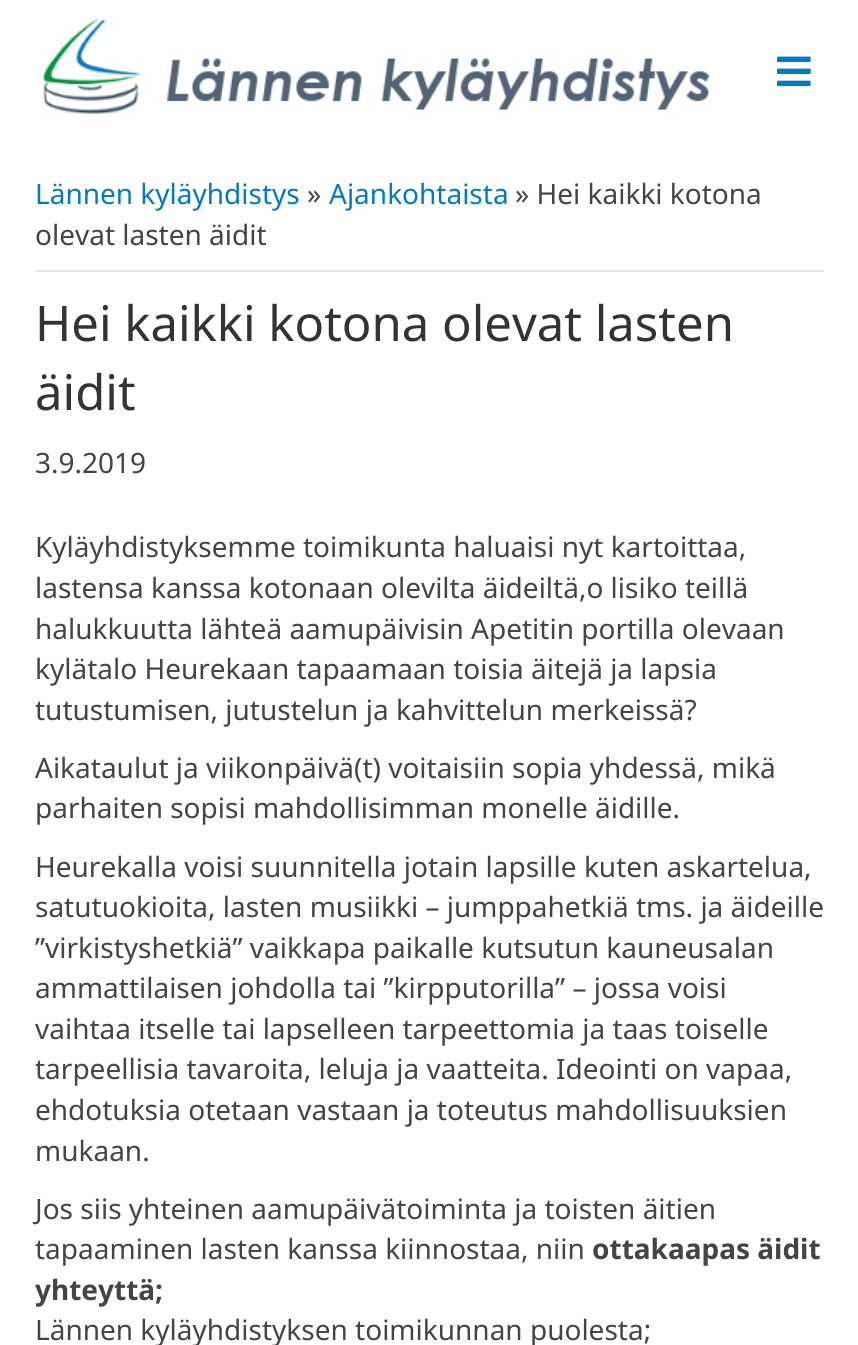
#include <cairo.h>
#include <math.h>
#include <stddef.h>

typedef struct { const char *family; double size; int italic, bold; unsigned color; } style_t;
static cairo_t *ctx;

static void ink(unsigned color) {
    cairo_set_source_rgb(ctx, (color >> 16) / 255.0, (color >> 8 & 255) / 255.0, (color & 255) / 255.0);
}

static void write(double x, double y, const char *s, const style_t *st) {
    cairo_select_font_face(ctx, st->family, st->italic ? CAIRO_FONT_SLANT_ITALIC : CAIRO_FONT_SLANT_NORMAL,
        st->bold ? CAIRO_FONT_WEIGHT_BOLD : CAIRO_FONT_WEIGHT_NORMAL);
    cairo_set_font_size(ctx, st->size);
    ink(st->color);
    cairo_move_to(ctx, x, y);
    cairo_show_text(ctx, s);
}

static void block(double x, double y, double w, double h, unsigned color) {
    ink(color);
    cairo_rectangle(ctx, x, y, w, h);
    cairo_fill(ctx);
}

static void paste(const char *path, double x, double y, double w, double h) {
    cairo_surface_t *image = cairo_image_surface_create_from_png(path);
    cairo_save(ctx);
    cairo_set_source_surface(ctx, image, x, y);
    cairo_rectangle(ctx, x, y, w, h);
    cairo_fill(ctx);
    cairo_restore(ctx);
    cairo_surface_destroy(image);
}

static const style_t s1 = {"Noto Sans", 28, 0, 0, 0x0079c8};
static const style_t s2 = {"Noto Sans", 28, 0, 0, 0x444444};
static const style_t s3 = {"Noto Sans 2", 49, 0, 0, 0x333333};
static const style_t s4 = {"Noto Sans", 28, 0, 1, 0x444444};

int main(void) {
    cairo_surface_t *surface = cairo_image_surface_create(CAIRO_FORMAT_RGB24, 858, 1345);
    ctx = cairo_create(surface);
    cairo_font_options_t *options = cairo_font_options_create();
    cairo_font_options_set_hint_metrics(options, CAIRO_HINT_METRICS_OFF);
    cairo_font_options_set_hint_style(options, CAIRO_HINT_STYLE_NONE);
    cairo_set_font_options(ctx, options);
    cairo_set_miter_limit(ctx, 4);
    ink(0xffffff);
    cairo_paint(ctx);
    paste("pic1.png", 43, 18, 667, 96);
    paste("pic2.png", 777, 56, 34, 31);
    block(35, 270, 789, 2, 0xe6e6e6);
    write(35, 204, "Lännen kyläyhdistys", &s1);
    write(307, 204, "»", &s2);
    write(329, 204, "Ajankohtaista", &s1);
    write(515, 204, "» Hei kaikki kotona", &s2);
    write(35, 245, "olevat lasten äidit", &s2);
    write(35, 341, "Hei kaikki kotona olevat lasten", &s3);
    write(35, 410, "äidit", &s3);
    write(35, 473, "3.9.2019", &s2);
    write(35, 557, "Kyläyhdistyksemme toimikunta haluaisi nyt kartoittaa,", &s2);
    write(35, 598, "lastensa kanssa kotonaan olevilta äideiltä,o lisiko teillä", &s2);
    write(35, 639, "halukkuutta lähteä aamupäivisin Apetitin portilla olevaan", &s2);
    write(35, 679, "kylätalo Heurekaan tapaamaan toisia äitejä ja lapsia", &s2);
    write(35, 720, "tutustumisen, jutustelun ja kahvittelun merkeissä?", &s2);
    write(35, 778, "Aikataulut ja viikonpäivä(t) voitaisiin sopia yhdessä, mikä", &s2);
    write(35, 818, "parhaiten sopisi mahdollisimman monelle äidille.", &s2);
    write(35, 877, "Heurekalla voisi suunnitella jotain lapsille kuten askartelua,", &s2);
    write(35, 917, "satutuokioita, lasten musiikki – jumppahetkiä tms. ja äideille", &s2);
    write(35, 958, "”virkistyshetkiä” vaikkapa paikalle kutsutun kauneusalan", &s2);
    write(35, 998, "ammattilaisen johdolla tai ”kirpputorilla” – jossa voisi", &s2);
    write(35, 1039, "vaihtaa itselle tai lapselleen tarpeettomia ja taas toiselle", &s2);
    write(35, 1079, "tarpeellisia tavaroita, leluja ja vaatteita. Ideointi on vapaa,", &s2);
    write(35, 1120, "ehdotuksia otetaan vastaan ja toteutus mahdollisuuksien", &s2);
    write(35, 1161, "mukaan.", &s2);
    write(35, 1219, "Jos siis yhteinen aamupäivätoiminta ja toisten äitien", &s2);
    write(35, 1259, "tapaaminen lasten kanssa kiinnostaa, niin", &s2);
    write(592, 1259, "ottakaapas äidit", &s4);
    write(35, 1300, "yhteyttä;", &s4);
    write(35, 1340, "Lännen kyläyhdistyksen toimikunnan puolesta;", &s2);
    cairo_surface_write_to_png(surface, "screenshot.png");
    cairo_font_options_destroy(options);
    cairo_destroy(ctx);
    cairo_surface_destroy(surface);
    return 0;
}
